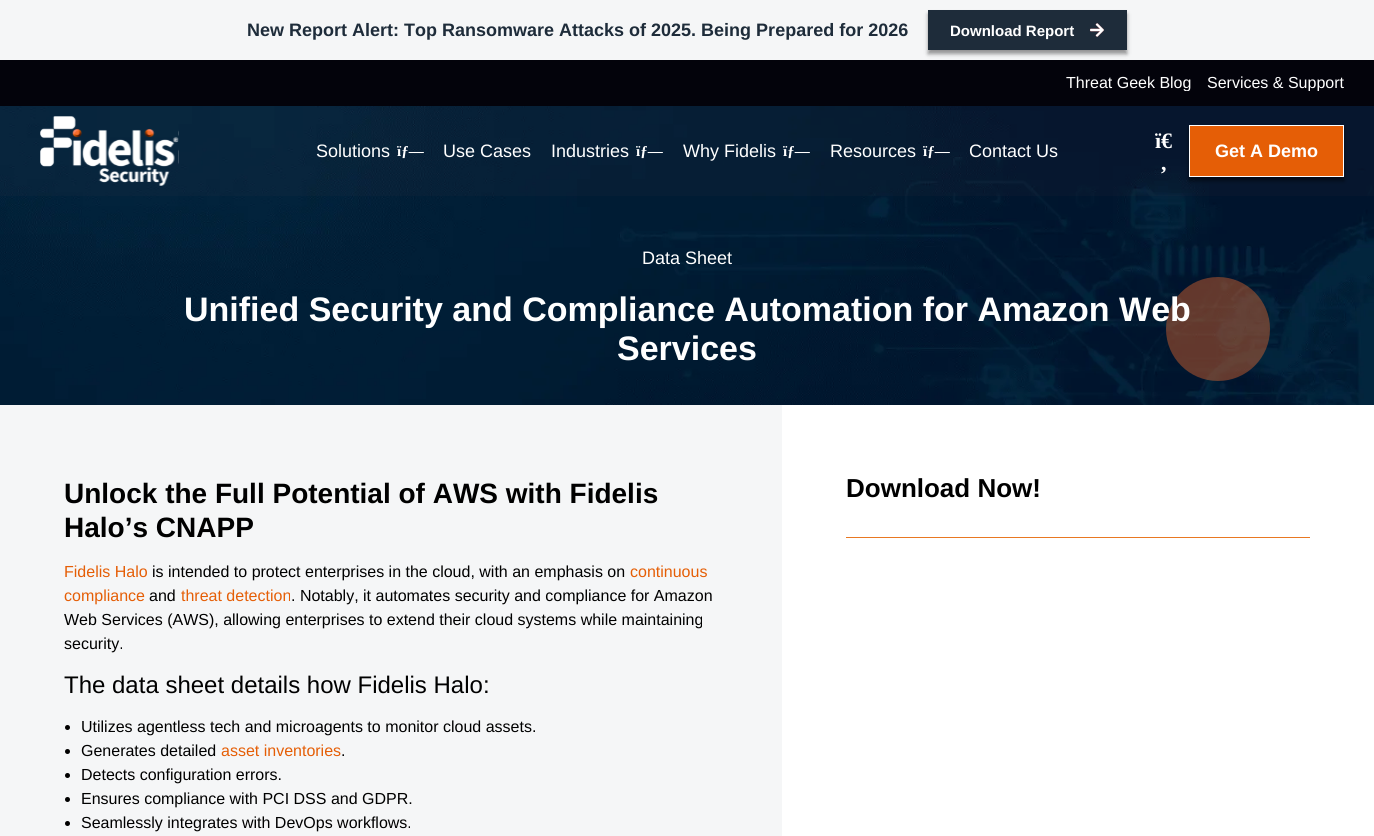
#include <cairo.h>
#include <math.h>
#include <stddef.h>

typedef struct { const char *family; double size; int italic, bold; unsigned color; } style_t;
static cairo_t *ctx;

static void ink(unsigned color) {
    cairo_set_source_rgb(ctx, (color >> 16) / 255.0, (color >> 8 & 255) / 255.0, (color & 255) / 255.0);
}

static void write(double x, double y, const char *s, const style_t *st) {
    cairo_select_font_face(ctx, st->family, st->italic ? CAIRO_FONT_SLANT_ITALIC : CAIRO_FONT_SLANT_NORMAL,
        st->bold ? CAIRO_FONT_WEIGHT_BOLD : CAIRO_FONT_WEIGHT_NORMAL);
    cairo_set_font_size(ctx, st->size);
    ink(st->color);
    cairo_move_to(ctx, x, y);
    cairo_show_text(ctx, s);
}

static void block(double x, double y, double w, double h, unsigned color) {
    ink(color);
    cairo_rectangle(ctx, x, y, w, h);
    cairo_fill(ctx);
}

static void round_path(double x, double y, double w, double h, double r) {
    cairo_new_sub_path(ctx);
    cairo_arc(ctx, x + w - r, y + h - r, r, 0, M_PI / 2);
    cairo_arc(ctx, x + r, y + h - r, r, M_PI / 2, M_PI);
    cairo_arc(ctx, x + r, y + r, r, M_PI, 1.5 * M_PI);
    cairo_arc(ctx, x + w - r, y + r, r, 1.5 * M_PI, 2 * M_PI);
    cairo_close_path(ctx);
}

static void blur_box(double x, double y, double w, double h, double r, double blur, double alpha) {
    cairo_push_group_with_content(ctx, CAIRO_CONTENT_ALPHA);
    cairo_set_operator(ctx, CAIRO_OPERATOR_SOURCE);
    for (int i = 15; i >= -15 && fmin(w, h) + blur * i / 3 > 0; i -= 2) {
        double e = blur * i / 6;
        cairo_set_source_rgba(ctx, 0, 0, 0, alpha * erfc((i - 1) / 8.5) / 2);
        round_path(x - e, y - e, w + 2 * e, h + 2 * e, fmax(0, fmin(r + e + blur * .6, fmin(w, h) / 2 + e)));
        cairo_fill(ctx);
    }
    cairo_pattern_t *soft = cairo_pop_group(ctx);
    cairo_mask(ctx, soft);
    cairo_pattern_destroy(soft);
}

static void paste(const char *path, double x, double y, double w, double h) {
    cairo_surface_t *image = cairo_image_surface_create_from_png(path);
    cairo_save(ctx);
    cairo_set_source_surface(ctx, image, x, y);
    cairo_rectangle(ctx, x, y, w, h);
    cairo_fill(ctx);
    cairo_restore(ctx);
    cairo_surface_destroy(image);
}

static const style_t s1 = {"Liberation Sans", 18, 0, 1, 0x1e2c3a};
static const style_t s2 = {"Liberation Sans", 15, 0, 1, 0xffffff};
static const style_t s3 = {"Liberation Sans", 16, 0, 0, 0xffffff};
static const style_t s4 = {"Liberation Sans", 18, 0, 0, 0xffffff};
static const style_t s5 = {"Liberation Serif", 15, 0, 1, 0xffffff};
static const style_t s6 = {"Liberation Serif", 22, 0, 1, 0xffffff};
static const style_t s7 = {"Liberation Sans", 18, 0, 1, 0xffffff};
static const style_t s8 = {"Liberation Sans", 34, 0, 1, 0xffffff};
static const style_t s9 = {"Liberation Sans", 28, 0, 1, 0x000000};
static const style_t s10 = {"Liberation Sans", 16, 0, 0, 0xe55e06};
static const style_t s11 = {"Liberation Sans", 16, 0, 0, 0x000000};
static const style_t s12 = {"Liberation Sans", 24, 0, 0, 0x000000};
static const style_t s13 = {"Liberation Sans", 26, 0, 1, 0x000000};

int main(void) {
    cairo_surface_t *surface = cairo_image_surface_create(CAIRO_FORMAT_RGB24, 1374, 836);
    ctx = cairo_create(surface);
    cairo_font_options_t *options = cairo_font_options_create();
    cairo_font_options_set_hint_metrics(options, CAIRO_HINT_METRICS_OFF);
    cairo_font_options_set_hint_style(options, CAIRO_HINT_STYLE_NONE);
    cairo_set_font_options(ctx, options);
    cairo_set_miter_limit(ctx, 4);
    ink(0xffffff);
    cairo_paint(ctx);
    block(0, 0, 1374, 60, 0xf5f6f7);
    write(247, 36, "New Report Alert: Top Ransomware Attacks of 2025. Being Prepared for 2026", &s1);
    ink(0x000000);
    blur_box(928, 14, 199, 40, 0, 2, 0.4);
    block(928, 10, 199, 40, 0x1e2c3a);
    write(950, 36, "Download Report", &s2);
    paste("pic1.png", 1089, 23, 15, 14);
    block(0, 60, 1374, 46, 0x03030b);
    cairo_save(ctx);
    cairo_rectangle(ctx, 1066, 75, 278, 16);
    cairo_clip(ctx);
    write(1066, 88, "Threat Geek Blog", &s3);
    write(1207, 88, "Services & Support", &s3);
    cairo_restore(ctx);
    paste("pic3.png", 0, 106, 1374, 299);
    cairo_set_source_rgba(ctx, 0.678, 0.369, 0.369, 0.04);
    cairo_rectangle(ctx, 0, 106, 1374, 90);
    cairo_fill(ctx);
    paste("pic2.png", 40, 116, 139, 70);
    write(316, 157, "Solutions", &s4);
    write(397, 156, "ïƒ—", &s5);
    write(443, 157, "Use Cases", &s4);
    write(551, 157, "Industries", &s4);
    write(636, 156, "ïƒ—", &s5);
    write(683, 157, "Why Fidelis", &s4);
    write(783, 156, "ïƒ—", &s5);
    write(830, 157, "Resources", &s4);
    write(923, 156, "ïƒ—", &s5);
    write(969, 157, "Contact Us", &s4);
    write(1155, 148, "ï€", &s6);
    write(1160, 170, "‚", &s6);
    ink(0x000000);
    blur_box(1189, 129, 155, 52, 0, 2, 0.5);
    ink(0xe55e06);
    cairo_rectangle(ctx, 1189.5, 125.5, 154, 51);
    cairo_fill_preserve(ctx);
    ink(0xffffff);
    cairo_set_line_width(ctx, 1);
    cairo_stroke(ctx);
    write(1215, 157, "Get A Demo", &s7);
    write(642, 264, "Data Sheet", &s4);
    cairo_set_source_rgba(ctx, 0.973, 0.431, 0.176, 0.4);
    cairo_new_path(ctx);
    cairo_arc(ctx, 1218, 329, 52, 0, 2 * M_PI);
    cairo_fill(ctx);
    write(184, 321, "Unified Security and Compliance Automation for Amazon Web", &s8);
    write(617, 360, "Services", &s8);
    block(0, 405, 782, 431, 0xf5f6f7);
    write(64, 503, "Unlock the Full Potential of AWS with Fidelis", &s9);
    write(64, 537, "Halo’s CNAPP", &s9);
    write(64, 577, "Fidelis Halo", &s10);
    write(152, 577, "is intended to protect enterprises in the cloud, with an emphasis on", &s11);
    write(630, 577, "continuous", &s10);
    write(64, 601, "compliance", &s10);
    write(149, 601, "and", &s11);
    write(181, 601, "threat detection", &s10);
    write(291, 601, ". Notably, it automates security and compliance for Amazon", &s11);
    write(64, 625, "Web Services (AWS), allowing enterprises to extend their cloud systems while maintaining", &s11);
    write(64, 649, "security.", &s11);
    write(64, 693, "The data sheet details how Fidelis Halo:", &s12);
    cairo_new_path(ctx);
    cairo_arc(ctx, 67.5, 727.5, 2.5, 0, 2 * M_PI);
    cairo_fill(ctx);
    write(81, 732, "Utilizes agentless tech and microagents to monitor cloud assets.", &s11);
    cairo_new_path(ctx);
    cairo_arc(ctx, 67.5, 751.5, 2.5, 0, 2 * M_PI);
    cairo_fill(ctx);
    write(81, 756, "Generates detailed", &s11);
    write(221, 756, "asset inventories", &s10);
    write(341, 756, ".", &s11);
    cairo_new_path(ctx);
    cairo_arc(ctx, 67.5, 775.5, 2.5, 0, 2 * M_PI);
    cairo_fill(ctx);
    write(81, 780, "Detects configuration errors.", &s11);
    cairo_new_path(ctx);
    cairo_arc(ctx, 67.5, 799.5, 2.5, 0, 2 * M_PI);
    cairo_fill(ctx);
    write(81, 804, "Ensures compliance with PCI DSS and GDPR.", &s11);
    cairo_new_path(ctx);
    cairo_arc(ctx, 67.5, 823.5, 2.5, 0, 2 * M_PI);
    cairo_fill(ctx);
    write(81, 828, "Seamlessly integrates with DevOps workflows.", &s11);
    write(846, 497, "Download Now!", &s13);
    block(846, 537, 464, 1, 0xe87822);
    cairo_surface_write_to_png(surface, "screenshot.png");
    cairo_font_options_destroy(options);
    cairo_destroy(ctx);
    cairo_surface_destroy(surface);
    return 0;
}
